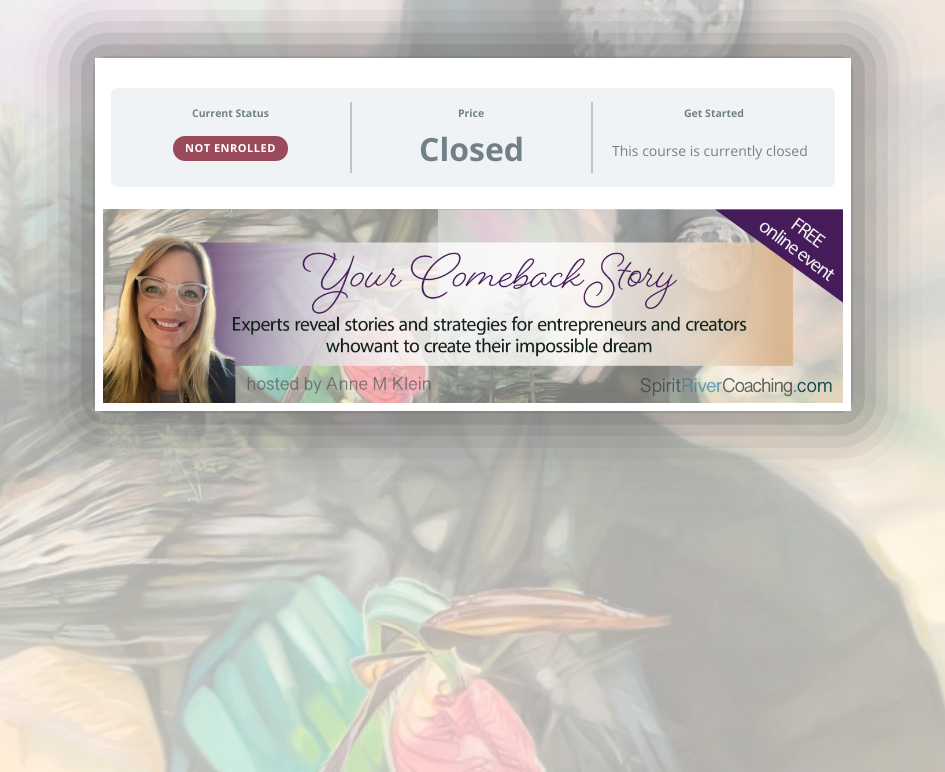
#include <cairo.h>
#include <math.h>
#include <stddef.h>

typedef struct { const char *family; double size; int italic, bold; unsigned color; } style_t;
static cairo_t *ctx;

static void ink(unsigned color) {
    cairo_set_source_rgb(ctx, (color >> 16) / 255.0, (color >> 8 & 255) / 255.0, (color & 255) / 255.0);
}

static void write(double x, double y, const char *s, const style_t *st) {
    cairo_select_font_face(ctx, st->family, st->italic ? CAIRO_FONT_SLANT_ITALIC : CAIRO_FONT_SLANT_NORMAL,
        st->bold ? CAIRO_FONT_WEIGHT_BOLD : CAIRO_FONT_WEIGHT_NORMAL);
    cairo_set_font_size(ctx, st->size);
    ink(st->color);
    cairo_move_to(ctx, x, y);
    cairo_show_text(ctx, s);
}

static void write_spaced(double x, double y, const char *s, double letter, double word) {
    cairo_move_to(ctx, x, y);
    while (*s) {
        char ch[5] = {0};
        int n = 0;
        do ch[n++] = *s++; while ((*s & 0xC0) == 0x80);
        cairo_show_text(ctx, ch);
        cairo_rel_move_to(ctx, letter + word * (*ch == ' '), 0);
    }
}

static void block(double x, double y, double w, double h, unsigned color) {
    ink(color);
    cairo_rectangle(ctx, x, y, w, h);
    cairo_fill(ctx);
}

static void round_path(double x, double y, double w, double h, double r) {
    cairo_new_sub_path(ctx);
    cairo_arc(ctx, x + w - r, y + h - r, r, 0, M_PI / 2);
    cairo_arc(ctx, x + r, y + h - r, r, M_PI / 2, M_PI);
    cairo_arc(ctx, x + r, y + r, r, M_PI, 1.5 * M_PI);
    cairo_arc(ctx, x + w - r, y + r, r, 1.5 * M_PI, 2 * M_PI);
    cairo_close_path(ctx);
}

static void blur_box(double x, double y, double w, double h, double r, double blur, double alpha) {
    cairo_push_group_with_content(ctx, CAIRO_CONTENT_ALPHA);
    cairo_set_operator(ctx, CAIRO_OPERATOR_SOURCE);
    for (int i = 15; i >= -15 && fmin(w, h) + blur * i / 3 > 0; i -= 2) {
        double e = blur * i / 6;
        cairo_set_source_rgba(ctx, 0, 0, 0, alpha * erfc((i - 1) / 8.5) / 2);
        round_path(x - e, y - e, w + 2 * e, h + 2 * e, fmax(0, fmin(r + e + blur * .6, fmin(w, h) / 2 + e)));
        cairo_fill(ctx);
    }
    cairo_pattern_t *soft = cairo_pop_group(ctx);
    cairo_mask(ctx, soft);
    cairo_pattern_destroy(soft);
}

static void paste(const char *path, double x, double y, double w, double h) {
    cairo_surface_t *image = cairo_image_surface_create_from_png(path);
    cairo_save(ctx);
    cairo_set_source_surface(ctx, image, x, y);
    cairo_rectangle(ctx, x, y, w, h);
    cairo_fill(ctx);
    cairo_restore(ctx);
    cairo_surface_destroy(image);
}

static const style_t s1 = {"Open Sans", 10.5, 0, 1, 0x728188};
static const style_t s2 = {"Open Sans", 32, 0, 1, 0x728188};
static const style_t s3 = {"Open Sans", 14, 0, 0, 0x728188};

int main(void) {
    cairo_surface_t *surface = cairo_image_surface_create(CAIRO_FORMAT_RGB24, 945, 772);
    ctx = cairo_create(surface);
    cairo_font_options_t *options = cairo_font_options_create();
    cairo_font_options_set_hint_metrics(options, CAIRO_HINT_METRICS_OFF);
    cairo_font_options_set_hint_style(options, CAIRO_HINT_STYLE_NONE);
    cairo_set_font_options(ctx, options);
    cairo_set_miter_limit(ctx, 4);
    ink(0xffffff);
    cairo_paint(ctx);
    paste("pic1.png", 0, 0, 945, 772);
    ink(0x5c5c5c);
    blur_box(87, 50, 772, 369, 0, 34.5, 0.9);
    block(95, 58, 756, 353, 0xffffff);
    ink(0xf0f3f6);
    round_path(111, 88, 724, 99, 6);
    cairo_fill(ctx);
    block(350, 102, 2, 71, 0xbec5cb);
    write(192, 117, "Current Status", &s1);
    ink(0x9b4a5a);
    round_path(173, 136, 115, 25, 12);
    cairo_fill(ctx);
    cairo_set_font_size(ctx, 11);
    ink(0xffffff);
    write_spaced(185, 152, "NOT ENROLLED", 0.5, 0);
    block(591, 102, 2, 71, 0xbec5cb);
    write(458, 117, "Price", &s1);
    write(419, 161, "Closed", &s2);
    write(684, 117, "Get Started", &s1);
    write(612, 156, "This course is currently closed", &s3);
    paste("pic2.png", 103, 209, 740, 194);
    cairo_surface_write_to_png(surface, "screenshot.png");
    cairo_font_options_destroy(options);
    cairo_destroy(ctx);
    cairo_surface_destroy(surface);
    return 0;
}
